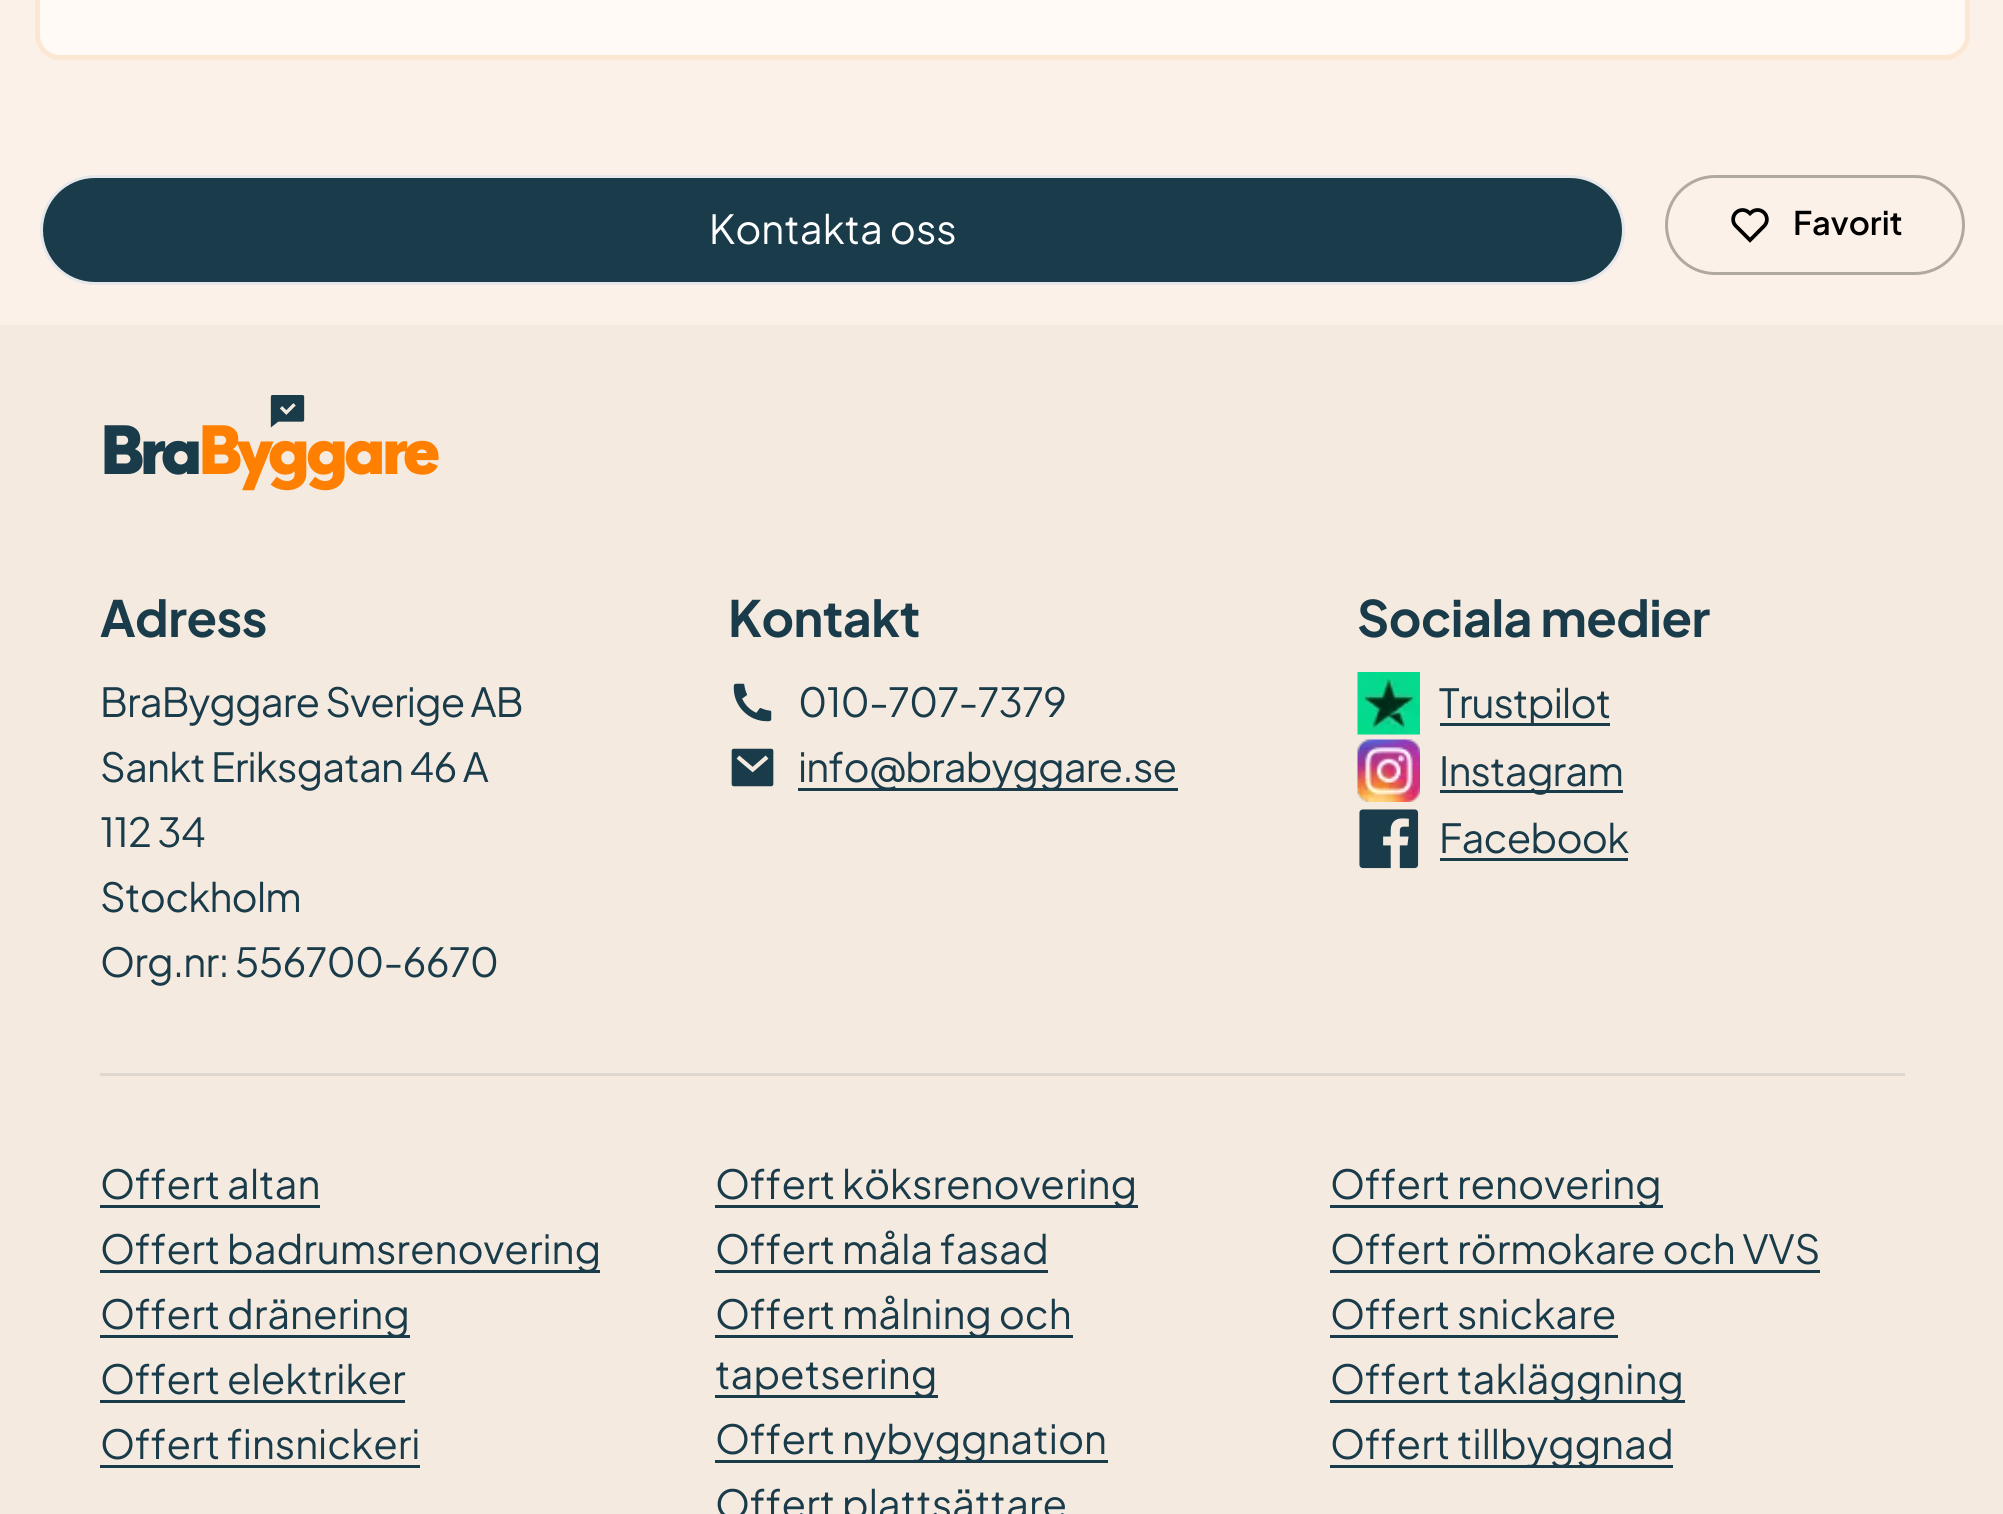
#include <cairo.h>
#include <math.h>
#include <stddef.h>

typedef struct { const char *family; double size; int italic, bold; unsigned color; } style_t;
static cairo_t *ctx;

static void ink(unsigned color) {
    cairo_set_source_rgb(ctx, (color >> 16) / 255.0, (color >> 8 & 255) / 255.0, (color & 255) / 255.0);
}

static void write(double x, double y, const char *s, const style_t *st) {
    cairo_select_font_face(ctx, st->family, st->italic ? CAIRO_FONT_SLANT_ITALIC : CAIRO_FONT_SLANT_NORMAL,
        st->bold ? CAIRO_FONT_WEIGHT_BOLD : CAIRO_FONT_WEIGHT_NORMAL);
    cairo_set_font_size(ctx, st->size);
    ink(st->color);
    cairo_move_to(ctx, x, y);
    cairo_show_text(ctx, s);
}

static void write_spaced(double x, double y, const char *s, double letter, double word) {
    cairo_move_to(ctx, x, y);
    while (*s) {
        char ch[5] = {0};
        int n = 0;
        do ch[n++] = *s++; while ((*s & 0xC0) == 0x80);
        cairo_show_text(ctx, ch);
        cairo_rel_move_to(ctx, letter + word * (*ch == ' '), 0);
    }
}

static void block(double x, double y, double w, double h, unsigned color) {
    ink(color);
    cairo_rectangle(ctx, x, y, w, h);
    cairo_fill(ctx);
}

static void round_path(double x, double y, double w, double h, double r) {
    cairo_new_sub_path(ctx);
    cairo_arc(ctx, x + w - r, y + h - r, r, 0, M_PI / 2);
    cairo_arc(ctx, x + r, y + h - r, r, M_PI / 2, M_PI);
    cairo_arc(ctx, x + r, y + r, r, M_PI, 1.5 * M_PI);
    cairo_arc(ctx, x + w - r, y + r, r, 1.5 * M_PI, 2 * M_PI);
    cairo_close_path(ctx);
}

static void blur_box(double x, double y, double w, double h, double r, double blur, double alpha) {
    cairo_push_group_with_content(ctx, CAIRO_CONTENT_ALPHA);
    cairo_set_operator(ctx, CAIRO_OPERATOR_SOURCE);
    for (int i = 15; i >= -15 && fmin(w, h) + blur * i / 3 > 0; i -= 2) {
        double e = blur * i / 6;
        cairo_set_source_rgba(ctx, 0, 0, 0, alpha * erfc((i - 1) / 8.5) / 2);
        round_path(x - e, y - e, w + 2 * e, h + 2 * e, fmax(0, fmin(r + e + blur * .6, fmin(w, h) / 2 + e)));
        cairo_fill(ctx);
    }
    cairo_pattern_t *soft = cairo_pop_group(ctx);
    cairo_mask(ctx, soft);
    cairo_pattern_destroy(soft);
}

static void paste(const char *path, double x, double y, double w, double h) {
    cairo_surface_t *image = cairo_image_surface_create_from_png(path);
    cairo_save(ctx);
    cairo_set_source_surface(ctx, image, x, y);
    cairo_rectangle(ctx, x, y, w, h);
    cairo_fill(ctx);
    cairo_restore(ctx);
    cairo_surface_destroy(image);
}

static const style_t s1 = {"Plus Jakarta Sans", 40, 0, 0, 0xffffff};
static const style_t s2 = {"Plus Jakarta Sans SemiBold", 32.5, 0, 0, 0x000000};
static const style_t s3 = {"Plus Jakarta Sans", 40, 0, 0, 0x193b4a};

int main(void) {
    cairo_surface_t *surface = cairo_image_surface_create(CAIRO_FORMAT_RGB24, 2003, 1514);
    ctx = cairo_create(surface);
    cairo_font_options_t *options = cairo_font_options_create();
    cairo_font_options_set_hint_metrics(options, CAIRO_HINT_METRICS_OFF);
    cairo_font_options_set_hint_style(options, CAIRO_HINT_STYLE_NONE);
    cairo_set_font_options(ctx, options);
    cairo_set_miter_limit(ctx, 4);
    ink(0xfbf1e8);
    cairo_paint(ctx);
    ink(0x000000);
    blur_box(40, -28, 1925, 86, 20, 2.5, 0.05);
    round_path(37.5, -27.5, 1930, 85, 22.5);
    ink(0xfce7d2);
    cairo_set_line_width(ctx, 5);
    cairo_stroke(ctx);
    ink(0xfffaf5);
    round_path(40, -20, 1925, 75, 20);
    cairo_fill(ctx);
    ink(0x193b4a);
    round_path(41.5, 176.5, 1582, 107, 53.5);
    cairo_fill_preserve(ctx);
    ink(0xe5e7eb);
    cairo_set_line_width(ctx, 3);
    cairo_stroke(ctx);
    write(709, 244, "Kontakta oss", &s1);
    round_path(1666.5, 176.5, 297, 97, 48.5);
    ink(0xb0a9a2);
    cairo_stroke(ctx);
    paste("pic1.png", 1731, 208, 38, 35);
    write(1793, 235, "Favorit", &s2);
    block(0, 325, 2003, 1189, 0xf5eadf);
    cairo_select_font_face(ctx, "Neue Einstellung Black", CAIRO_FONT_SLANT_NORMAL, CAIRO_FONT_WEIGHT_NORMAL);
    cairo_set_font_size(ctx, 65);
    ink(0xff7f00);
    write_spaced(198, 474, "Byggare", -5.5, 0);
    paste("pic2.png", 270, 395, 35, 33);
    ink(0x193b4a);
    write_spaced(100, 474, "Bra", -5.5, 0);
    cairo_select_font_face(ctx, "Plus Jakarta Sans", CAIRO_FONT_SLANT_NORMAL, CAIRO_FONT_WEIGHT_BOLD);
    cairo_set_font_size(ctx, 50);
    write_spaced(100, 637, "Adress", -0.5, 0);
    cairo_select_font_face(ctx, "Plus Jakarta Sans", CAIRO_FONT_SLANT_NORMAL, CAIRO_FONT_WEIGHT_NORMAL);
    cairo_set_font_size(ctx, 40);
    write_spaced(100, 717, "BraByggare Sverige AB", -0.8, 0);
    write_spaced(100, 782, "Sankt Eriksgatan 46 A", -0.8, 0);
    write_spaced(100, 847, "112 34", -0.8, 0);
    write_spaced(100, 912, "Stockholm", -0.8, 0);
    write_spaced(100, 977, "Org.nr: 556700-6670", -0.8, 0);
    cairo_select_font_face(ctx, "Plus Jakarta Sans", CAIRO_FONT_SLANT_NORMAL, CAIRO_FONT_WEIGHT_BOLD);
    cairo_set_font_size(ctx, 50);
    write_spaced(728, 637, "Kontakt", -0.5, 0);
    paste("pic3.png", 733, 683, 39, 39);
    cairo_select_font_face(ctx, "Plus Jakarta Sans", CAIRO_FONT_SLANT_NORMAL, CAIRO_FONT_WEIGHT_NORMAL);
    cairo_set_font_size(ctx, 40);
    write_spaced(798, 717, "010-707-7379", -0.8, 0);
    paste("pic4.png", 731, 748, 43, 39);
    block(798, 788, 380, 3, 0x193b4a);
    write_spaced(798, 782, "info@brabyggare.se", -0.8, 0);
    cairo_select_font_face(ctx, "Plus Jakarta Sans", CAIRO_FONT_SLANT_NORMAL, CAIRO_FONT_WEIGHT_BOLD);
    cairo_set_font_size(ctx, 50);
    write_spaced(1357, 637, "Sociala medier", -0.5, 0);
    paste("pic5.png", 1357, 672, 63, 63);
    block(1440, 723, 170, 3, 0x193b4a);
    cairo_select_font_face(ctx, "Plus Jakarta Sans", CAIRO_FONT_SLANT_NORMAL, CAIRO_FONT_WEIGHT_NORMAL);
    cairo_set_font_size(ctx, 40);
    write_spaced(1439, 718, "Trustpilot", -0.8, 0);
    paste("pic6.png", 1357, 739, 63, 63);
    block(1440, 790, 183, 3, 0x193b4a);
    write_spaced(1439, 786, "Instagram", -0.8, 0);
    paste("pic7.png", 1359, 809, 60, 60);
    write_spaced(1439, 853, "Facebook", -0.8, 0);
    block(1440, 858, 188, 3, 0x193b4a);
    block(100, 1073, 1805, 3, 0xdfd8d0);
    write(100, 1199, "Offert altan", &s3);
    block(100, 1205, 220, 3, 0x193b4a);
    block(715, 1205, 423, 3, 0x193b4a);
    write(715, 1199, "Offert köksrenovering", &s3);
    block(1330, 1205, 333, 3, 0x193b4a);
    write(1330, 1199, "Offert renovering", &s3);
    block(100, 1270, 500, 3, 0x193b4a);
    write(100, 1264, "Offert badrumsrenovering", &s3);
    write(715, 1264, "Offert måla fasad", &s3);
    block(715, 1270, 333, 3, 0x193b4a);
    write(1330, 1264, "Offert rörmokare och VVS", &s3);
    block(1330, 1270, 490, 3, 0x193b4a);
    block(100, 1335, 310, 3, 0x193b4a);
    write(100, 1329, "Offert dränering", &s3);
    block(715, 1335, 358, 3, 0x193b4a);
    write(715, 1329, "Offert målning och", &s3);
    block(715, 1395, 223, 3, 0x193b4a);
    write(715, 1389, "tapetsering", &s3);
    write(1330, 1329, "Offert snickare", &s3);
    block(1330, 1335, 288, 3, 0x193b4a);
    write(100, 1394, "Offert elektriker", &s3);
    block(100, 1400, 305, 3, 0x193b4a);
    block(1330, 1400, 355, 3, 0x193b4a);
    write(1330, 1394, "Offert takläggning", &s3);
    write(100, 1459, "Offert finsnickeri", &s3);
    block(100, 1465, 320, 3, 0x193b4a);
    block(715, 1460, 393, 3, 0x193b4a);
    write(715, 1454, "Offert nybyggnation", &s3);
    block(1330, 1465, 343, 3, 0x193b4a);
    write(1330, 1459, "Offert tillbyggnad", &s3);
    write(715, 1519, "Offert plattsättare", &s3);
    cairo_surface_write_to_png(surface, "screenshot.png");
    cairo_font_options_destroy(options);
    cairo_destroy(ctx);
    cairo_surface_destroy(surface);
    return 0;
}
